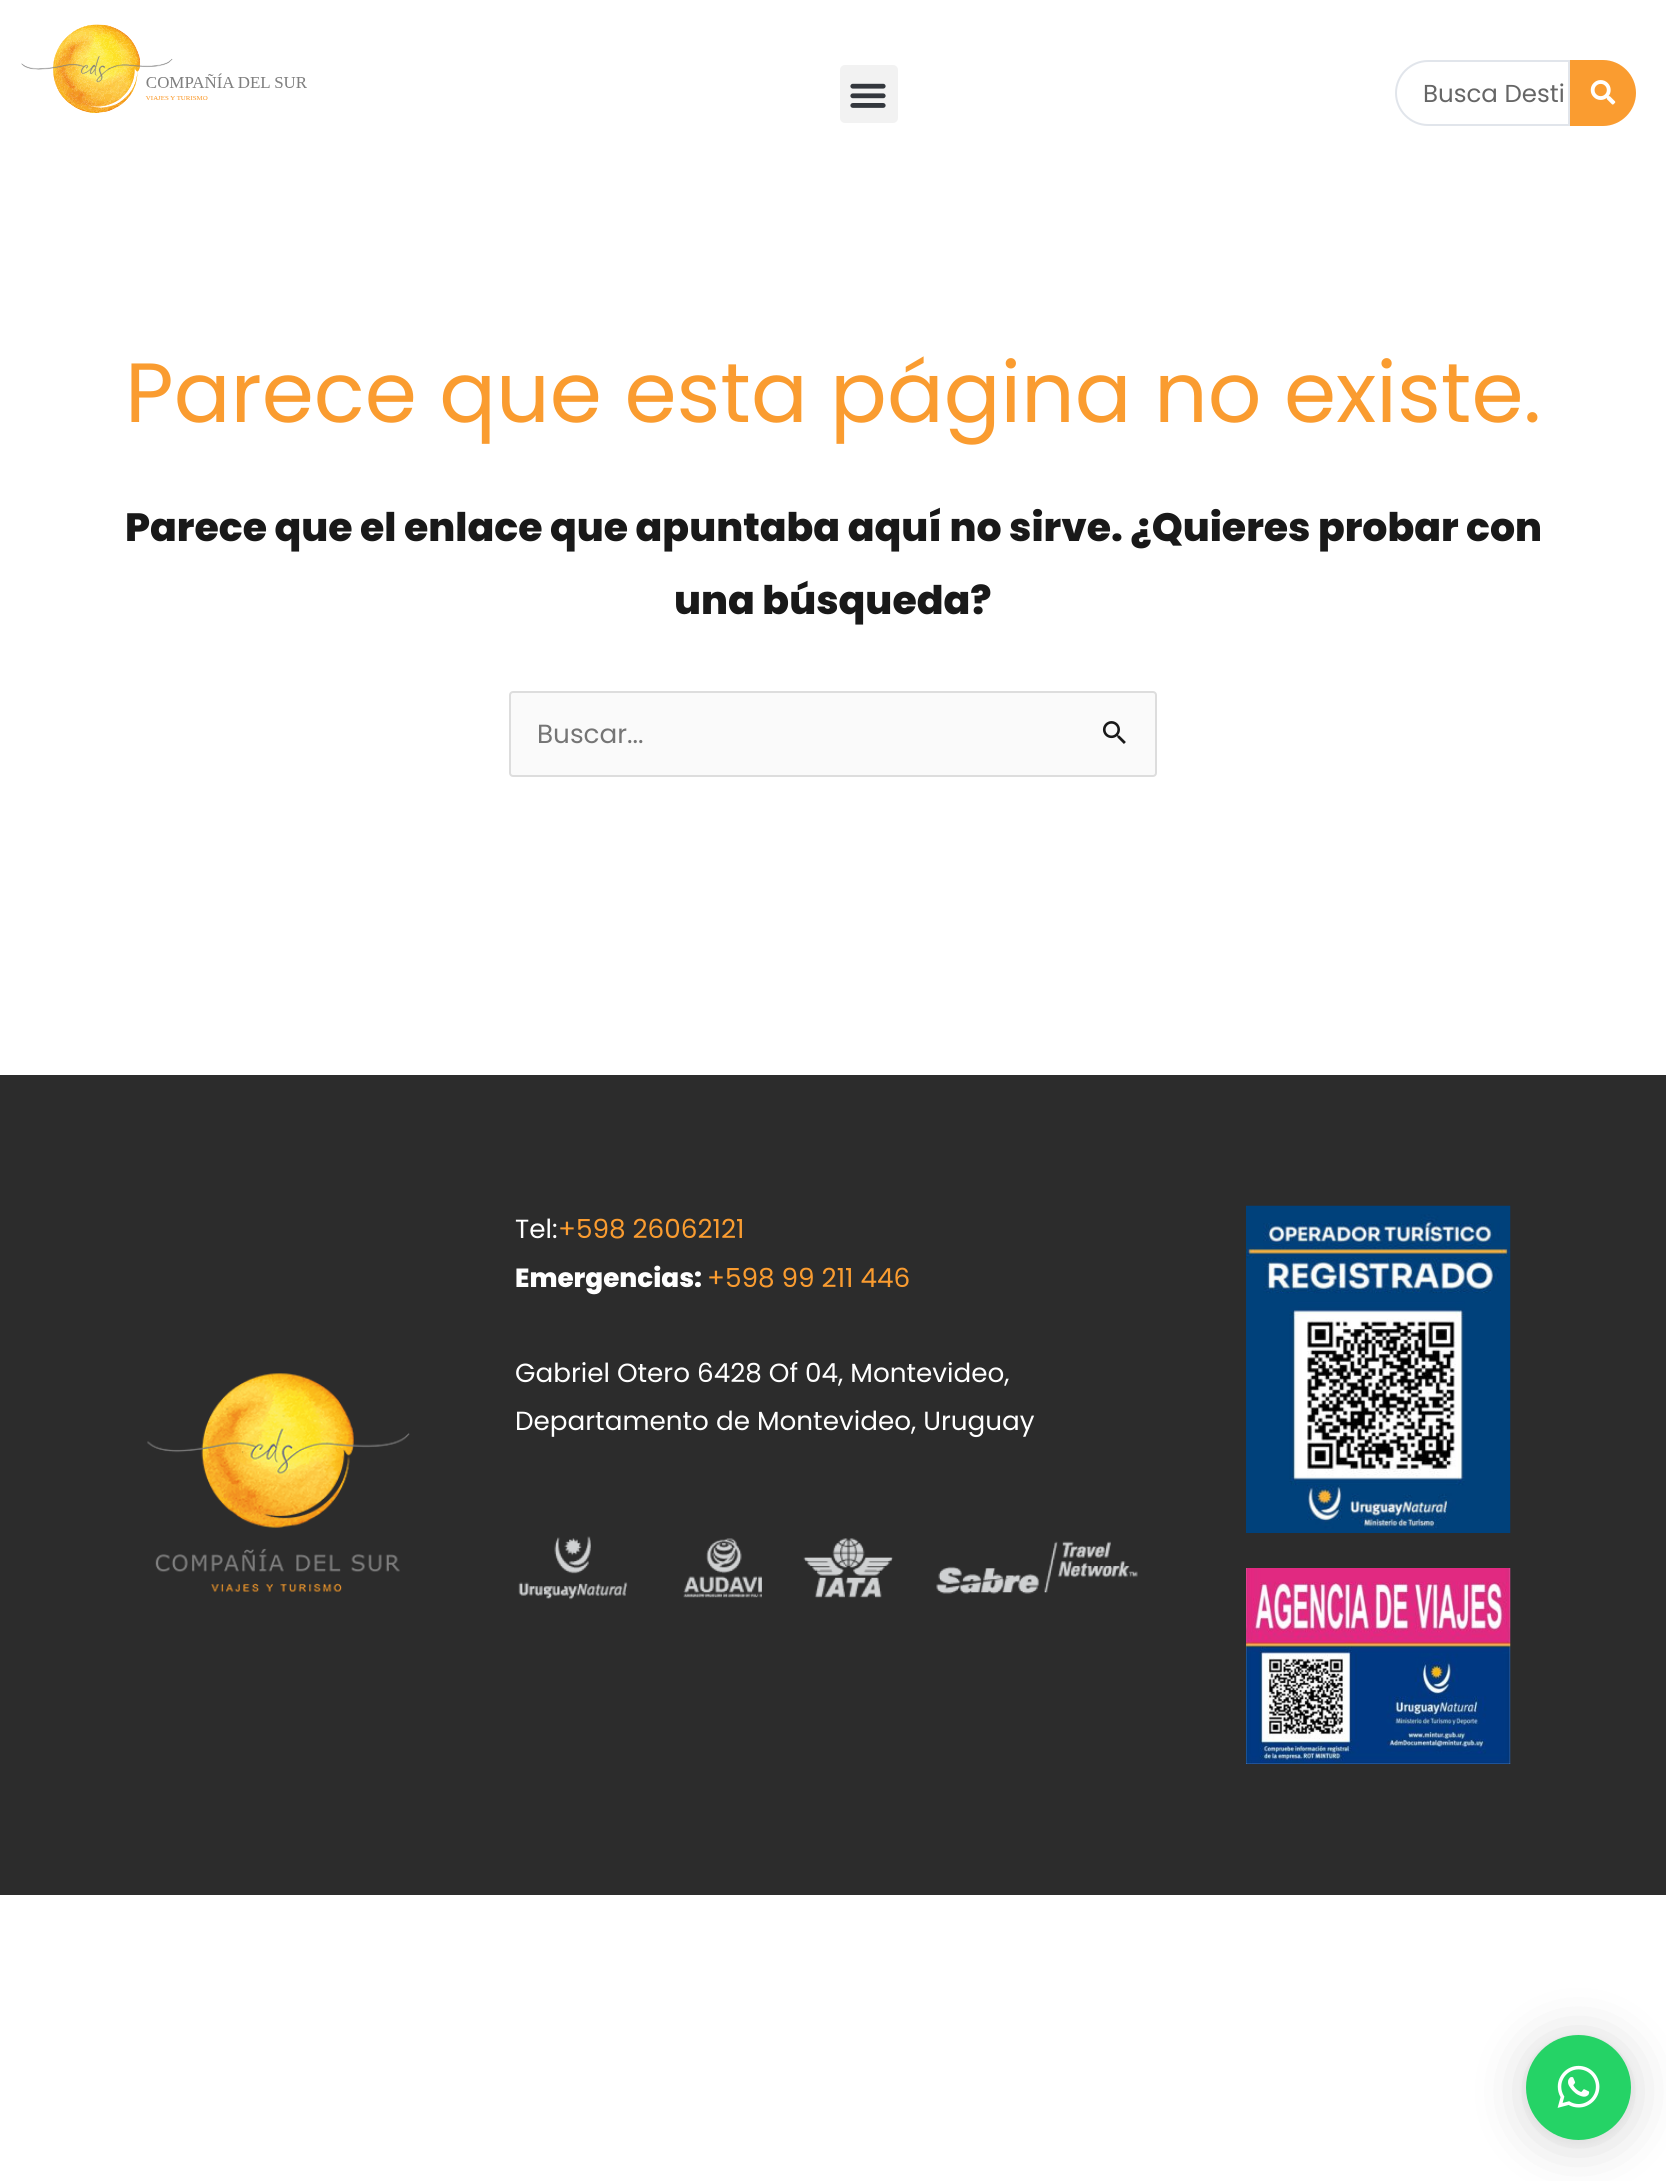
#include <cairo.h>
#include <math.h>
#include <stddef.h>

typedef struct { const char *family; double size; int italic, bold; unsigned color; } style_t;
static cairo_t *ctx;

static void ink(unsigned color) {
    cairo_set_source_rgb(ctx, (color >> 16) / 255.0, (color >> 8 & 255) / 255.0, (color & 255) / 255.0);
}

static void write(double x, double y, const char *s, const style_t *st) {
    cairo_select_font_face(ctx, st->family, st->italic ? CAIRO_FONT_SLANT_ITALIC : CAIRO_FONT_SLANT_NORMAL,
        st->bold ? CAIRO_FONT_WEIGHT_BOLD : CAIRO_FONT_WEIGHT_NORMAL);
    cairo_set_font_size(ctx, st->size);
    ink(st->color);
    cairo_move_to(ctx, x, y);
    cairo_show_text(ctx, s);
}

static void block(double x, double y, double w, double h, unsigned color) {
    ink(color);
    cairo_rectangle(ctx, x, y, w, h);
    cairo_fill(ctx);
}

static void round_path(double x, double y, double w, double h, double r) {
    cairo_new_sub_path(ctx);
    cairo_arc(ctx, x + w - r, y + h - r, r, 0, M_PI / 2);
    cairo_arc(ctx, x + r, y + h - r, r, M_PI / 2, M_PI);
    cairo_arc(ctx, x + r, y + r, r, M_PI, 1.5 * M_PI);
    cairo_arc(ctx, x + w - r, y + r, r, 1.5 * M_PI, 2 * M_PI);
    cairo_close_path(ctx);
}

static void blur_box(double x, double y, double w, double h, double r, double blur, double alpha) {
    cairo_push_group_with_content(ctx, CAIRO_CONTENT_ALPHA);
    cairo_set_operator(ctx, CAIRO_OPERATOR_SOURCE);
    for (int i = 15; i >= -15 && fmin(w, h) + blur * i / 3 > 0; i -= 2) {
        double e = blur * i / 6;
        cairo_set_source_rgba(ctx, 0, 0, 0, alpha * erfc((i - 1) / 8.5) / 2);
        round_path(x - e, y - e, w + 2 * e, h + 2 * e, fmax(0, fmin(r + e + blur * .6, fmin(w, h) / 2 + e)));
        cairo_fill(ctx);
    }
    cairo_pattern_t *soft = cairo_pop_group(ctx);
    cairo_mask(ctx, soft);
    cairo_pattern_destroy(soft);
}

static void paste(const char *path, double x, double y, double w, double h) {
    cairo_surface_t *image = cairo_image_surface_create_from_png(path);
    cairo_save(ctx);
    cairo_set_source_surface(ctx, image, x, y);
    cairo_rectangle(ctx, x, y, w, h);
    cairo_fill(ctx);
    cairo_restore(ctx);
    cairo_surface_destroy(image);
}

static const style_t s1 = {"Poppins", 24.5, 0, 0, 0x666666};
static const style_t s2 = {"Poppins", 84, 0, 0, 0xfa9c30};
static const style_t s3 = {"Poppins ExtraBold", 39.4, 0, 0, 0x191919};
static const style_t s4 = {"Poppins", 26.25, 0, 0, 0x757575};
static const style_t s5 = {"Poppins", 26.25, 0, 0, 0xffffff};
static const style_t s6 = {"Poppins", 26.25, 0, 0, 0xfa9c30};
static const style_t s7 = {"Poppins ExtraBold", 26.25, 0, 0, 0xffffff};

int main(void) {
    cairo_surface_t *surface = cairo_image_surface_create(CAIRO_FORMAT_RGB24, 1666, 2181);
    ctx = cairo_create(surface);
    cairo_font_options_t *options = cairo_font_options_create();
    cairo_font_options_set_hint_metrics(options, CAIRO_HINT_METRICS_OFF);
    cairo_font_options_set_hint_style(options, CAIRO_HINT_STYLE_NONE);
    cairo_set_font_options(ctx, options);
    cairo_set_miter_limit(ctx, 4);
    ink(0xffffff);
    cairo_paint(ctx);
    paste("pic1.png", 21, 24, 286, 89);
    ink(0xf2f2f2);
    round_path(840, 65, 58, 58, 5);
    cairo_fill(ctx);
    paste("pic2.png", 850, 83, 36, 25);
    cairo_new_path(ctx);
    cairo_move_to(ctx, 1428, 61);
    cairo_line_to(ctx, 1569, 61);
    cairo_line_to(ctx, 1569, 125);
    cairo_line_to(ctx, 1428, 125);
    cairo_curve_to(ctx, 1410.5, 125, 1396, 110.5, 1396, 93);
    cairo_curve_to(ctx, 1396, 75.5, 1410.5, 61, 1428, 61);
    cairo_close_path(ctx);
    ink(0xe1e5eb);
    cairo_stroke(ctx);
    write(1423, 102, "Busca Desti", &s1);
    ink(0xfa9c30);
    cairo_new_path(ctx);
    cairo_move_to(ctx, 1570, 60);
    cairo_line_to(ctx, 1603, 60);
    cairo_curve_to(ctx, 1621, 60, 1636, 75, 1636, 93);
    cairo_curve_to(ctx, 1636, 111, 1621, 126, 1603, 126);
    cairo_line_to(ctx, 1570, 126);
    cairo_close_path(ctx);
    cairo_fill(ctx);
    paste("pic3.png", 1590, 80, 26, 25);
    write(125, 422, "Parece que esta página no existe.", &s2);
    write(125, 541, "Parece que el enlace que apuntaba aquí no sirve. ¿Quieres probar con", &s3);
    write(674, 614, "una búsqueda?", &s3);
    ink(0xfafafa);
    round_path(510, 692, 646, 84, 3);
    cairo_fill_preserve(ctx);
    ink(0xdddddd);
    cairo_stroke(ctx);
    write(537, 743, "Buscar...", &s4);
    paste("pic4.png", 1102, 721, 24, 23);
    block(0, 1075, 1666, 820, 0x2c2c2c);
    write(515, 1238, "Tel:", &s5);
    write(558, 1238, "+598 26062121", &s6);
    write(515, 1287, "Emergencias:", &s7);
    write(707, 1287, "+598 99 211 446", &s6);
    write(515, 1382, "Gabriel Otero 6428 Of 04, Montevideo,", &s5);
    write(515, 1430, "Departamento de Montevideo, Uruguay", &s5);
    paste("pic5.png", 518, 1536, 620, 64);
    paste("pic6.png", 1246, 1205, 265, 328);
    paste("pic7.png", 1246, 1568, 265, 196);
    paste("pic8.png", 147, 1373, 263, 219);
    ink(0x000000);
    blur_box(1526, 2039, 105, 105, 52.5, 28, 0.16);
    blur_box(1526, 2037, 105, 105, 52.5, 5, 0.06);
    ink(0x25d366);
    cairo_arc(ctx, 1578.5, 2087.5, 52.5, 0, 2 * M_PI);
    cairo_fill(ctx);
    paste("pic9.png", 1557, 2065, 43, 43);
    cairo_surface_write_to_png(surface, "screenshot.png");
    cairo_font_options_destroy(options);
    cairo_destroy(ctx);
    cairo_surface_destroy(surface);
    return 0;
}
